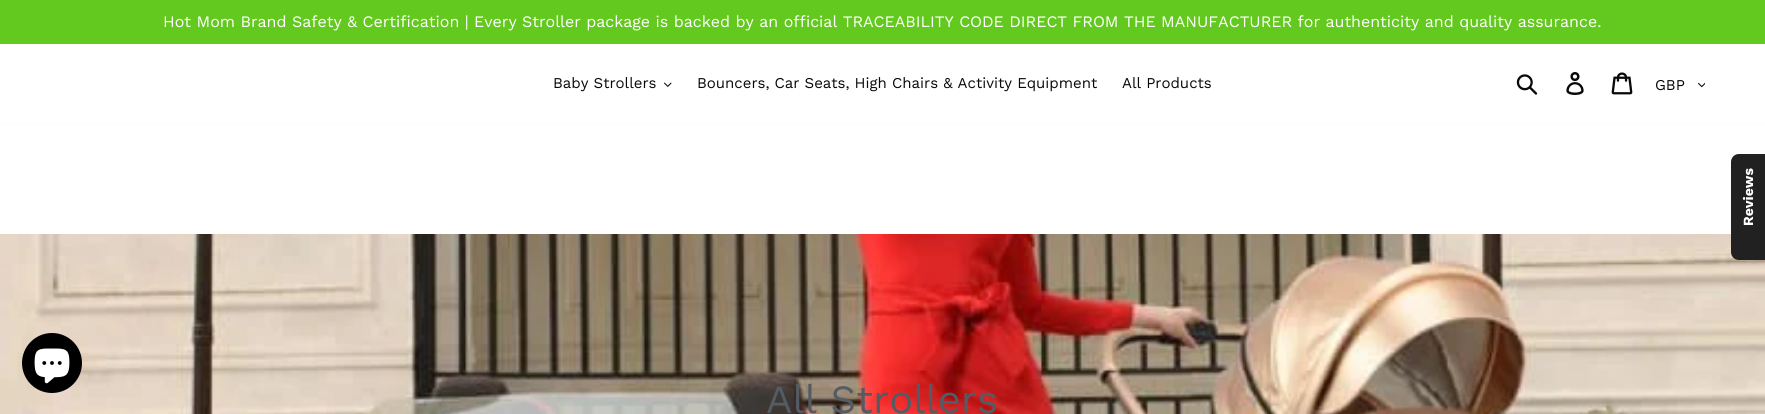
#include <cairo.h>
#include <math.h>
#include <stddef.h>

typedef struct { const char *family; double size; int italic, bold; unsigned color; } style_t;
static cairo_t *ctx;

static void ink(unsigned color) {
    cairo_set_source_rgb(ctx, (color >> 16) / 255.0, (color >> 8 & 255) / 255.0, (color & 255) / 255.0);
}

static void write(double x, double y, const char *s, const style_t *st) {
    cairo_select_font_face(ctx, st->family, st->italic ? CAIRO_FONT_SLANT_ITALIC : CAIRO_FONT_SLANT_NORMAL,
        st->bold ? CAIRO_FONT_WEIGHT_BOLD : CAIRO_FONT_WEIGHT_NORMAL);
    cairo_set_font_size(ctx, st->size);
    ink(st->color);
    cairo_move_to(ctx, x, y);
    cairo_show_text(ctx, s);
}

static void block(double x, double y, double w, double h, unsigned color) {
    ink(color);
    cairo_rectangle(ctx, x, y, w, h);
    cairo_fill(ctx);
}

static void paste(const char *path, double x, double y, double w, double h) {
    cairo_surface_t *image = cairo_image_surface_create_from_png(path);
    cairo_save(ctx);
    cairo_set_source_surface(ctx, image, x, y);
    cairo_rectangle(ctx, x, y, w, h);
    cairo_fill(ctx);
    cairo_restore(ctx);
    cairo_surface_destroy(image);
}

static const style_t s1 = {"Work Sans", 16, 0, 0, 0xffffff};
static const style_t s2 = {"Work Sans", 15, 0, 0, 0x0a0909};
static const style_t s3 = {"Work Sans", 14, 0, 1, 0xffffff};
static const style_t s4 = {"Work Sans", 40, 0, 0, 0x535c64};

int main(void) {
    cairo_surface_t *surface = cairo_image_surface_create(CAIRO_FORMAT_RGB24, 1765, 414);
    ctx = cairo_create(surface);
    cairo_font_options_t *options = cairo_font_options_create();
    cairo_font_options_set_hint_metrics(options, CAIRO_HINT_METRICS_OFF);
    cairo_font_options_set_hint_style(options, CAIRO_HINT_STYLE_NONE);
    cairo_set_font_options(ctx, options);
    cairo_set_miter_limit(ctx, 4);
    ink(0xffffff);
    cairo_paint(ctx);
    block(0, 0, 1765, 44, 0x63c91f);
    write(163, 27, "Hot Mom Brand Safety & Certification | Every Stroller package is backed by an official TRACEABILITY CODE DIRECT FROM THE MANUFACTURER for authenticity and quality assurance.", &s1);
    block(0, 123, 1765, 1, 0xfdfdf6);
    write(553, 88, "Baby Strollers", &s2);
    paste("pic1.png", 664, 82, 8, 5);
    write(697, 88, "Bouncers, Car Seats, High Chairs & Activity Equipment", &s2);
    write(1122, 88, "All Products", &s2);
    paste("pic2.png", 1516, 74, 22, 21);
    paste("pic3.png", 1566, 72, 18, 23);
    paste("pic4.png", 1611, 72, 22, 23);
    write(1655, 90, "GBP", &s2);
    paste("pic5.png", 1698, 82, 7, 6);
    paste("pic7.png", 0, 234, 1765, 180);
    ink(0x212121);
    cairo_new_path(ctx);
    cairo_move_to(ctx, 1731, 252);
    cairo_line_to(ctx, 1731, 162);
    cairo_curve_to(ctx, 1731, 158, 1734, 154, 1739, 154);
    cairo_line_to(ctx, 1765, 154);
    cairo_line_to(ctx, 1765, 260);
    cairo_line_to(ctx, 1739, 260);
    cairo_curve_to(ctx, 1734, 260, 1731, 256, 1731, 252);
    cairo_close_path(ctx);
    cairo_fill(ctx);
    cairo_save(ctx);
    cairo_translate(ctx, 1753, 226);
    cairo_rotate(ctx, -90 * M_PI / 180);
    write(0, 0, "Reviews", &s3);
    cairo_restore(ctx);
    ink(0x000000);
    cairo_new_path(ctx);
    cairo_arc(ctx, 52, 363, 30, 0, 2 * M_PI);
    cairo_fill(ctx);
    paste("pic6.png", 34, 348, 36, 36);
    write(766, 413, "All Strollers", &s4);
    cairo_surface_write_to_png(surface, "screenshot.png");
    cairo_font_options_destroy(options);
    cairo_destroy(ctx);
    cairo_surface_destroy(surface);
    return 0;
}
